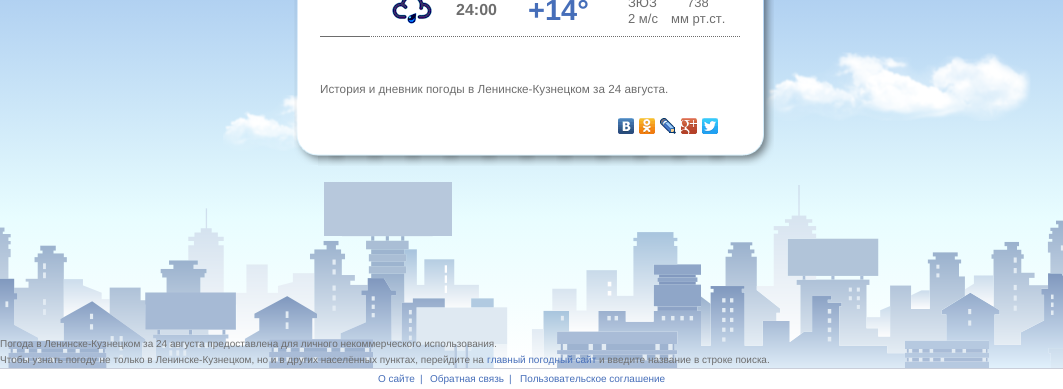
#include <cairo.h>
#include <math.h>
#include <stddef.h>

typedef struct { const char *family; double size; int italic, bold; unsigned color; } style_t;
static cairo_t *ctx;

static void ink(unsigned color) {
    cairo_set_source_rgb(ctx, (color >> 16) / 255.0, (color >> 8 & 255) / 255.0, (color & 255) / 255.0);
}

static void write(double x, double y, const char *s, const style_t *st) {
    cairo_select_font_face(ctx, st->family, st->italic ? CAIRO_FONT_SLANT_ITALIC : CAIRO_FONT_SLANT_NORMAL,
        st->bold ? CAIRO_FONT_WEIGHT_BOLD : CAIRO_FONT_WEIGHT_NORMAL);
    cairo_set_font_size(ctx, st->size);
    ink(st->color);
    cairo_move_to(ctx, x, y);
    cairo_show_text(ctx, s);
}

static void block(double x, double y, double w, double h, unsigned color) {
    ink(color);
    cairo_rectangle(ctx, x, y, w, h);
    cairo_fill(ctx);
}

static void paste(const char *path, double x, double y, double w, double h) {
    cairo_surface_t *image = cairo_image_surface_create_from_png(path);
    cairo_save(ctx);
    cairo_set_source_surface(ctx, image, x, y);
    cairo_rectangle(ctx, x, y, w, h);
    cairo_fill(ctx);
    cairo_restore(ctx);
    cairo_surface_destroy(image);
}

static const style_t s1 = {"Liberation Sans", 16, 0, 1, 0x6d6d6d};
static const style_t s2 = {"Liberation Sans", 29, 0, 1, 0x466eb9};
static const style_t s3 = {"Liberation Sans", 13, 0, 0, 0x6d6d6d};
static const style_t s4 = {"Liberation Sans", 11.7, 0, 0, 0x6d6d6d};
static const style_t s5 = {"Liberation Sans", 10, 0, 0, 0x6d6d6d};
static const style_t s6 = {"Liberation Sans", 10, 0, 0, 0x466eb9};

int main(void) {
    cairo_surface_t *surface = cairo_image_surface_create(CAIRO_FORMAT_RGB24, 1063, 389);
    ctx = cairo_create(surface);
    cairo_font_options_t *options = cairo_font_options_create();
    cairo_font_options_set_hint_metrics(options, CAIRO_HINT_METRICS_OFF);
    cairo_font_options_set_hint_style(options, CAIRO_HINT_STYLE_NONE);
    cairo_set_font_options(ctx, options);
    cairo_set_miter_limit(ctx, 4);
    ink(0xffffff);
    cairo_paint(ctx);
    paste("pic1.png", 0, 0, 1063, 368);
    paste("pic2.png", 223, 95, 80, 56);
    paste("pic3.png", 766, 52, 265, 69);
    paste("pic4.png", 0, 182, 1063, 186);
    paste("pic5.png", 294, 0, 23, 135);
    block(317, 0, 428, 138, 0xffffff);
    paste("pic6.png", 392, 0, 40, 24);
    write(456, 15, "24:00", &s1);
    write(528, 20, "+14°", &s2);
    write(628, 7, "ЗЮЗ", &s3);
    write(628, 23, "2 м/с", &s3);
    write(687, 7, "738", &s3);
    write(671, 23, "мм рт.ст.", &s3);
    block(320, 36, 50, 1, 0x6d6d6d);
    cairo_new_path(ctx);
    cairo_move_to(ctx, 369, 36.5);
    cairo_line_to(ctx, 741, 36.5);
    cairo_set_line_width(ctx, 1);
    cairo_set_dash(ctx, (double[]){1, 1}, 2, 0);
    cairo_stroke(ctx);
    write(320, 93, "История и дневник погоды в Ленинске-Кузнецком за 24 августа.", &s4);
    paste("pic7.png", 618, 118, 100, 16);
    paste("pic8.png", 745, 0, 29, 135);
    paste("pic9.png", 294, 135, 24, 30);
    paste("pic10.png", 318, 138, 424, 28);
    paste("pic11.png", 742, 135, 32, 31);
    write(0, 347, "Погода в Ленинске-Кузнецком за 24 августа предоставлена для личного некоммерческого использования.", &s5);
    write(0, 363, "Чтобы узнать погоду не только в Ленинске-Кузнецком, но и в других населённых пунктах, перейдите на", &s5);
    write(487, 363, "главный погодный сайт", &s6);
    write(599, 363, "и введите название в строке поиска.", &s5);
    block(0, 368, 1063, 1, 0xcaced9);
    write(378, 382, "О сайте", &s6);
    write(420, 382, "|", &s6);
    write(430, 382, "Обратная связь", &s6);
    write(509, 382, "|", &s6);
    write(520, 382, "Пользовательское соглашение", &s6);
    cairo_surface_write_to_png(surface, "screenshot.png");
    cairo_font_options_destroy(options);
    cairo_destroy(ctx);
    cairo_surface_destroy(surface);
    return 0;
}
